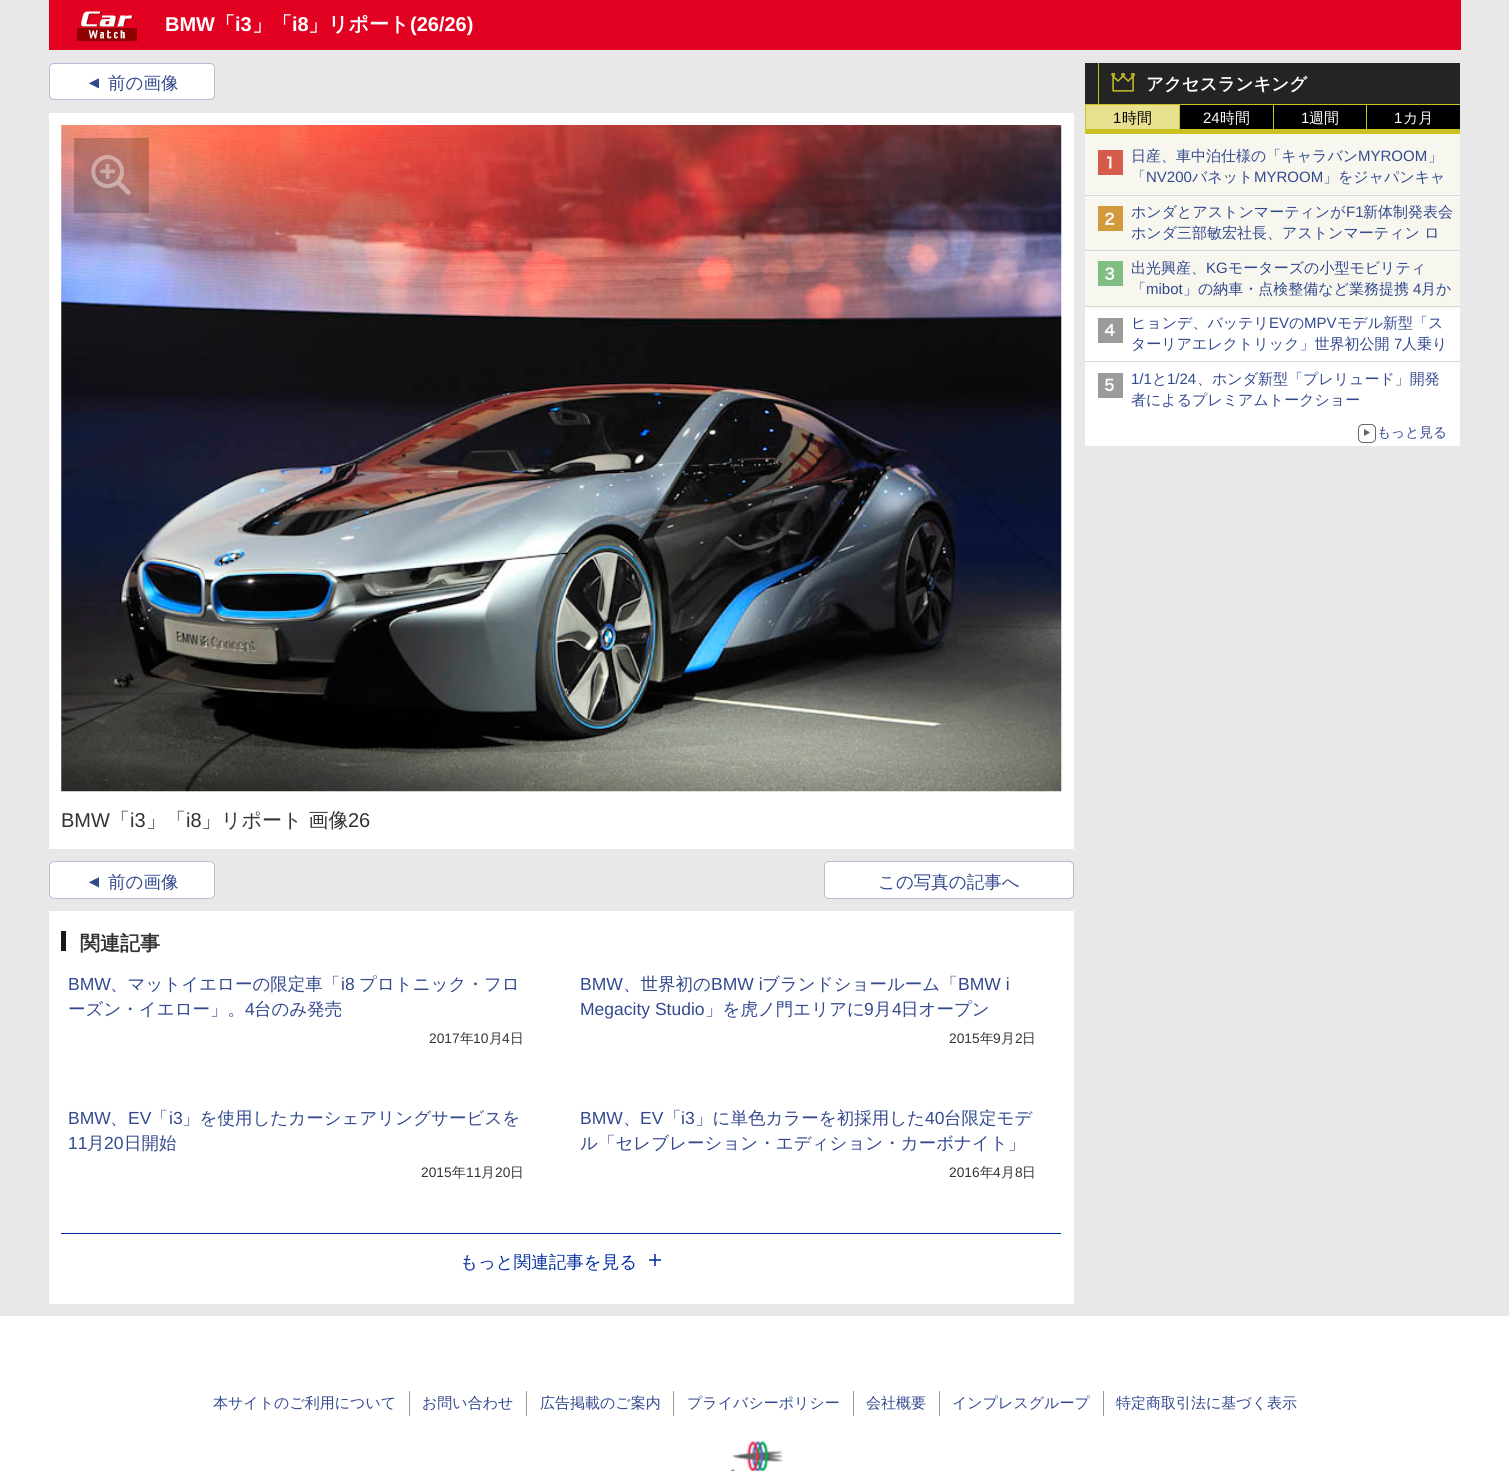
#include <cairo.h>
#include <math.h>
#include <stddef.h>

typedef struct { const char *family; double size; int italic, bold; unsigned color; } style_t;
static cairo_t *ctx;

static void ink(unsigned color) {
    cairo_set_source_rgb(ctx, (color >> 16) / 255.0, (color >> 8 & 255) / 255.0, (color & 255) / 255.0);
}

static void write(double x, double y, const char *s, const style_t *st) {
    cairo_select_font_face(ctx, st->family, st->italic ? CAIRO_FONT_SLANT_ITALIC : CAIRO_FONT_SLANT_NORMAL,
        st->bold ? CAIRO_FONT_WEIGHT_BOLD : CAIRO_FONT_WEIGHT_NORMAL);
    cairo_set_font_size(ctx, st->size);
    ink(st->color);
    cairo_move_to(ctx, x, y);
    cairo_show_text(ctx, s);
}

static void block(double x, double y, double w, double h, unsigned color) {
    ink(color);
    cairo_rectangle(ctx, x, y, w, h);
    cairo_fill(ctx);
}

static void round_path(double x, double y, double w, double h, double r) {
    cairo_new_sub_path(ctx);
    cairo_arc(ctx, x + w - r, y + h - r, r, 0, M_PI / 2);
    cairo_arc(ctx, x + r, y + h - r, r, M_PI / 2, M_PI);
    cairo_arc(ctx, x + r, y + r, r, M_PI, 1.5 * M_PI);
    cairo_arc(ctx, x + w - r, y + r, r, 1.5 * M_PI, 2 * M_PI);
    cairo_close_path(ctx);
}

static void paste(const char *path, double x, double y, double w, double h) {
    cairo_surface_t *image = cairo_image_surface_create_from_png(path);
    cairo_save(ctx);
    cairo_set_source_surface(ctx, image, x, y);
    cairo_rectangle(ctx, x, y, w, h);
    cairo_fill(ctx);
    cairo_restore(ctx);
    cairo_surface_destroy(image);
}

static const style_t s1 = {"Liberation Sans", 20, 0, 1, 0xffffff};
static const style_t s2 = {"WenQuanYi Zen Hei", 20, 0, 1, 0xffffff};
static const style_t s3 = {"Liberation Sans", 17.5, 0, 0, 0x33498e};
static const style_t s4 = {"WenQuanYi Zen Hei Medium", 17.5, 0, 0, 0x33498e};
static const style_t s5 = {"Liberation Sans", 20, 0, 0, 0x333333};
static const style_t s6 = {"WenQuanYi Zen Hei Medium", 20, 0, 0, 0x333333};
static const style_t s7 = {"WenQuanYi Zen Hei", 20, 0, 1, 0x333333};
static const style_t s8 = {"Liberation Sans", 13.75, 0, 0, 0x333333};
static const style_t s9 = {"WenQuanYi Zen Hei Medium", 13.75, 0, 0, 0x333333};
static const style_t s10 = {"WenQuanYi Zen Hei Medium", 17.5, 0, 0, 0x032e9d};
static const style_t s11 = {"WenQuanYi Zen Hei", 17.5, 0, 1, 0xffffff};
static const style_t s12 = {"Liberation Sans", 15, 0, 0, 0x000000};
static const style_t s13 = {"WenQuanYi Zen Hei Medium", 15, 0, 0, 0x000000};
static const style_t s14 = {"Liberation Sans", 15, 0, 0, 0xffffff};
static const style_t s15 = {"WenQuanYi Zen Hei Medium", 15, 0, 0, 0xffffff};
static const style_t s16 = {"WenQuanYi Zen Hei Medium", 15, 0, 0, 0x33498e};
static const style_t s17 = {"Liberation Sans", 15, 0, 0, 0x33498e};
static const style_t s18 = {"WenQuanYi Zen Hei Medium", 13.75, 0, 0, 0x33498e};

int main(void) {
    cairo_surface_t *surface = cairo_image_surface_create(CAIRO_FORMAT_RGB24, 1509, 1471);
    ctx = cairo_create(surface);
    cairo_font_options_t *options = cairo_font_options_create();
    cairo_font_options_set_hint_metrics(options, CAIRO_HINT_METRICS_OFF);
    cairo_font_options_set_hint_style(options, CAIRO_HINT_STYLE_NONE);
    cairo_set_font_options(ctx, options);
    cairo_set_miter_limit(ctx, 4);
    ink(0xe8e8e8);
    cairo_paint(ctx);
    block(49, 0, 1412, 50, 0xe30121);
    paste("pic1.png", 77, 11, 60, 30);
    write(165, 31, "BMW", &s1);
    write(215, 31, "「", &s2);
    write(235, 31, "i3", &s1);
    write(252, 31, "」「", &s2);
    write(292, 31, "i8", &s1);
    write(308, 31, "」リポート", &s2);
    write(410, 31, "(26/26)", &s1);
    round_path(49, 63, 166, 37, 5);
    cairo_fill(ctx);
    round_path(49.5, 63.5, 165, 36, 4.5);
    cairo_set_source_rgba(ctx, 0.196, 0.286, 0.557, 0.36);
    cairo_set_line_width(ctx, 1);
    cairo_stroke(ctx);
    cairo_save(ctx);
    cairo_translate(ctx, 99, 92);
    cairo_rotate(ctx, -90 * M_PI / 180);
    write(0, 0, "▲", &s3);
    cairo_restore(ctx);
    write(108, 89, "前の画像", &s4);
    block(49, 113, 1025, 736, 0xffffff);
    paste("pic2.png", 61, 125, 1001, 667);
    cairo_set_source_rgba(ctx, 0, 0, 0, 0.2);
    cairo_rectangle(ctx, 74, 138, 75, 75);
    cairo_fill(ctx);
    paste("pic3.png", 91, 155, 40, 41);
    write(61, 827, "BMW", &s5);
    write(110, 827, "「", &s6);
    write(130, 827, "i3", &s5);
    write(146, 827, "」「", &s6);
    write(186, 827, "i8", &s5);
    write(201, 827, "」リポート 画像", &s6);
    write(348, 827, "26", &s5);
    ink(0xffffff);
    round_path(49, 861, 166, 38, 5);
    cairo_fill(ctx);
    round_path(49.5, 861.5, 165, 37, 4.5);
    cairo_set_source_rgba(ctx, 0.196, 0.286, 0.557, 0.36);
    cairo_stroke(ctx);
    cairo_save(ctx);
    cairo_translate(ctx, 99, 891);
    cairo_rotate(ctx, -90 * M_PI / 180);
    write(0, 0, "▲", &s3);
    cairo_restore(ctx);
    write(108, 888, "前の画像", &s4);
    ink(0xffffff);
    round_path(824, 861, 250, 38, 5);
    cairo_fill(ctx);
    round_path(824.5, 861.5, 249, 37, 4.5);
    cairo_set_source_rgba(ctx, 0.196, 0.286, 0.557, 0.36);
    cairo_stroke(ctx);
    write(878, 888, "この写真の記事へ", &s4);
    block(49, 911, 1025, 393, 0xffffff);
    block(61, 931, 5, 20, 0x181818);
    write(80, 950, "関連記事", &s7);
    write(68, 990, "BMW", &s3);
    write(110, 990, "、マットイエローの限定車「", &s4);
    write(341, 990, "i8", &s3);
    write(359, 990, "プロトニック・フロ", &s4);
    write(68, 1015, "ーズン・イエロー」。", &s4);
    write(245, 1015, "4", &s3);
    write(254, 1015, "台のみ発売", &s4);
    write(429, 1043, "2017", &s8);
    write(460, 1043, "年", &s9);
    write(473, 1043, "10", &s8);
    write(489, 1043, "月", &s9);
    write(502, 1043, "4", &s8);
    write(510, 1043, "日", &s9);
    write(580, 990, "BMW", &s3);
    write(623, 990, "、世界初の", &s4);
    write(711, 990, "BMW i", &s3);
    write(762, 990, "ブランドショールーム「", &s4);
    write(958, 990, "BMW i", &s3);
    write(580, 1015, "Megacity Studio", &s3);
    write(705, 1015, "」を虎ノ門エリアに", &s4);
    write(864, 1015, "9", &s3);
    write(874, 1015, "月", &s4);
    write(892, 1015, "4", &s3);
    write(901, 1015, "日オープン", &s4);
    write(949, 1043, "2015", &s8);
    write(980, 1043, "年", &s9);
    write(993, 1043, "9", &s8);
    write(1001, 1043, "月", &s9);
    write(1015, 1043, "2", &s8);
    write(1022, 1043, "日", &s9);
    write(68, 1124, "BMW", &s3);
    write(110, 1124, "、", &s4);
    write(128, 1124, "EV", &s3);
    write(151, 1124, "「", &s4);
    write(169, 1124, "i3", &s3);
    write(182, 1124, "」を使用したカーシェアリングサービスを", &s4);
    write(68, 1149, "11", &s3);
    write(87, 1149, "月", &s4);
    write(104, 1149, "20", &s3);
    write(124, 1149, "日開始", &s4);
    write(421, 1177, "2015", &s8);
    write(452, 1177, "年", &s9);
    write(466, 1177, "11", &s8);
    write(481, 1177, "月", &s9);
    write(495, 1177, "20", &s8);
    write(510, 1177, "日", &s9);
    write(580, 1124, "BMW", &s3);
    write(623, 1124, "、", &s4);
    write(640, 1124, "EV", &s3);
    write(664, 1124, "「", &s4);
    write(681, 1124, "i3", &s3);
    write(695, 1124, "」に単色カラーを初採用した", &s4);
    write(925, 1124, "40", &s3);
    write(944, 1124, "台限定モデ", &s4);
    write(580, 1149, "ル「セレブレーション・エディション・カーボナイト」", &s4);
    write(949, 1177, "2016", &s8);
    write(980, 1177, "年", &s9);
    write(993, 1177, "4", &s8);
    write(1001, 1177, "月", &s9);
    write(1015, 1177, "8", &s8);
    write(1022, 1177, "日", &s9);
    block(61, 1233, 1000, 1, 0x032e9d);
    write(460, 1268, "もっと関連記事を見る", &s10);
    paste("pic4.png", 649, 1254, 12, 12);
    block(1085, 63, 375, 41, 0x242424);
    block(1085, 104, 375, 1, 0xcbc121);
    block(1098, 63, 1, 42, 0xcbc121);
    paste("pic5.png", 1111, 73, 24, 19);
    write(1146, 90, "アクセスランキング", &s11);
    block(1086, 105, 93, 24, 0xe7e18f);
    block(1085, 129, 375, 5, 0xcbc121);
    block(1085, 105, 1, 29, 0xcbc121);
    write(1113, 123, "1", &s12);
    write(1122, 123, "時間", &s13);
    block(1180, 105, 93, 24, 0x000000);
    block(1179, 105, 1, 29, 0xcbc121);
    write(1203, 123, "24", &s14);
    write(1220, 123, "時間", &s15);
    block(1274, 105, 92, 24, 0x000000);
    block(1273, 105, 1, 29, 0xcbc121);
    write(1301, 123, "1", &s14);
    write(1309, 123, "週間", &s15);
    block(1367, 105, 93, 24, 0x000000);
    block(1366, 105, 1, 29, 0xcbc121);
    write(1394, 123, "1", &s14);
    write(1403, 123, "カ月", &s15);
    block(1085, 134, 375, 61, 0xf7f7ef);
    block(1085, 195, 375, 1, 0xd8d8d8);
    block(1098, 150, 25, 25, 0xd65b4a);
    ink(0xf7f7ef);
    cairo_new_path(ctx);
    cairo_move_to(ctx, 1111.5, 168.5);
    cairo_line_to(ctx, 1111.5, 156.5);
    cairo_line_to(ctx, 1107, 156.5);
    cairo_line_to(ctx, 1107, 158.5);
    cairo_line_to(ctx, 1109.5, 158.5);
    cairo_line_to(ctx, 1109, 168.5);
    cairo_close_path(ctx);
    cairo_fill(ctx);
    write(1131, 161, "日産、車中泊仕様の「キャラバン", &s16);
    write(1358, 161, "MYROOM", &s17);
    write(1428, 161, "」", &s16);
    write(1131, 182, "「", &s16);
    write(1146, 182, "NV200", &s17);
    write(1192, 182, "バネット", &s16);
    write(1254, 182, "MYROOM", &s17);
    write(1323, 182, "」をジャパンキャ", &s16);
    block(1085, 196, 375, 54, 0xf7f7ef);
    block(1085, 250, 375, 1, 0xd8d8d8);
    paste("pic6.png", 1098, 206, 25, 25);
    write(1131, 217, "ホンダとアストンマーティンが", &s16);
    write(1346, 217, "F1", &s17);
    write(1363, 217, "新体制発表会", &s16);
    write(1131, 238, "ホンダ三部敏宏社長、アストンマーティン ロ", &s16);
    block(1085, 251, 375, 57, 0xf7f7ef);
    block(1085, 306, 375, 1, 0xd8d8d8);
    paste("pic7.png", 1098, 261, 25, 25);
    write(1131, 273, "出光興産、", &s16);
    write(1206, 273, "KG", &s17);
    write(1228, 273, "モーターズの小型モビリティ", &s16);
    write(1131, 294, "「", &s16);
    write(1146, 294, "mibot", &s17);
    write(1183, 294, "」の納車・点検整備など業務提携", &s16);
    write(1413, 294, "4", &s17);
    write(1421, 294, "月か", &s16);
    block(1085, 308, 375, 138, 0xffffff);
    block(1085, 361, 375, 1, 0xd8d8d8);
    paste("pic8.png", 1098, 318, 25, 25);
    write(1131, 328, "ヒョンデ、バッテリ", &s16);
    write(1269, 328, "EV", &s17);
    write(1289, 328, "の", &s16);
    write(1304, 328, "MPV", &s17);
    write(1337, 328, "モデル新型「ス", &s16);
    write(1131, 349, "ターリアエレクトリック」世界初公開", &s16);
    write(1394, 349, "7", &s17);
    write(1402, 349, "人乗り", &s16);
    paste("pic9.png", 1098, 373, 25, 25);
    write(1131, 384, "1/1", &s17);
    write(1152, 384, "と", &s16);
    write(1167, 384, "1/24", &s17);
    write(1197, 384, "、ホンダ新型「プレリュード」開発", &s16);
    write(1131, 405, "者によるプレミアムトークショー", &s16);
    round_path(1358.5, 424.5, 17, 18, 4.5);
    ink(0x666666);
    cairo_stroke(ctx);
    write(1377, 437, "もっと見る", &s18);
    ink(0x666666);
    cairo_new_path(ctx);
    cairo_move_to(ctx, 1364, 436);
    cairo_line_to(ctx, 1364, 429);
    cairo_line_to(ctx, 1370, 432.5);
    cairo_close_path(ctx);
    cairo_fill(ctx);
    block(0, 1316, 1509, 155, 0xffffff);
    block(409, 1391, 1, 25, 0x9b9b9b);
    write(213, 1408, "本サイトのご利用について", &s16);
    block(526, 1391, 1, 25, 0x9b9b9b);
    write(422, 1408, "お問い合わせ", &s16);
    block(673, 1391, 1, 25, 0x9b9b9b);
    write(540, 1408, "広告掲載のご案内", &s16);
    block(853, 1391, 1, 25, 0x9b9b9b);
    write(687, 1408, "プライバシーポリシー", &s16);
    block(939, 1391, 1, 25, 0x9b9b9b);
    write(866, 1408, "会社概要", &s16);
    block(1103, 1391, 1, 25, 0x9b9b9b);
    write(952, 1408, "インプレスグループ", &s16);
    write(1116, 1408, "特定商取引法に基づく表示", &s16);
    paste("pic10.png", 730, 1441, 53, 30);
    cairo_surface_write_to_png(surface, "screenshot.png");
    cairo_font_options_destroy(options);
    cairo_destroy(ctx);
    cairo_surface_destroy(surface);
    return 0;
}
